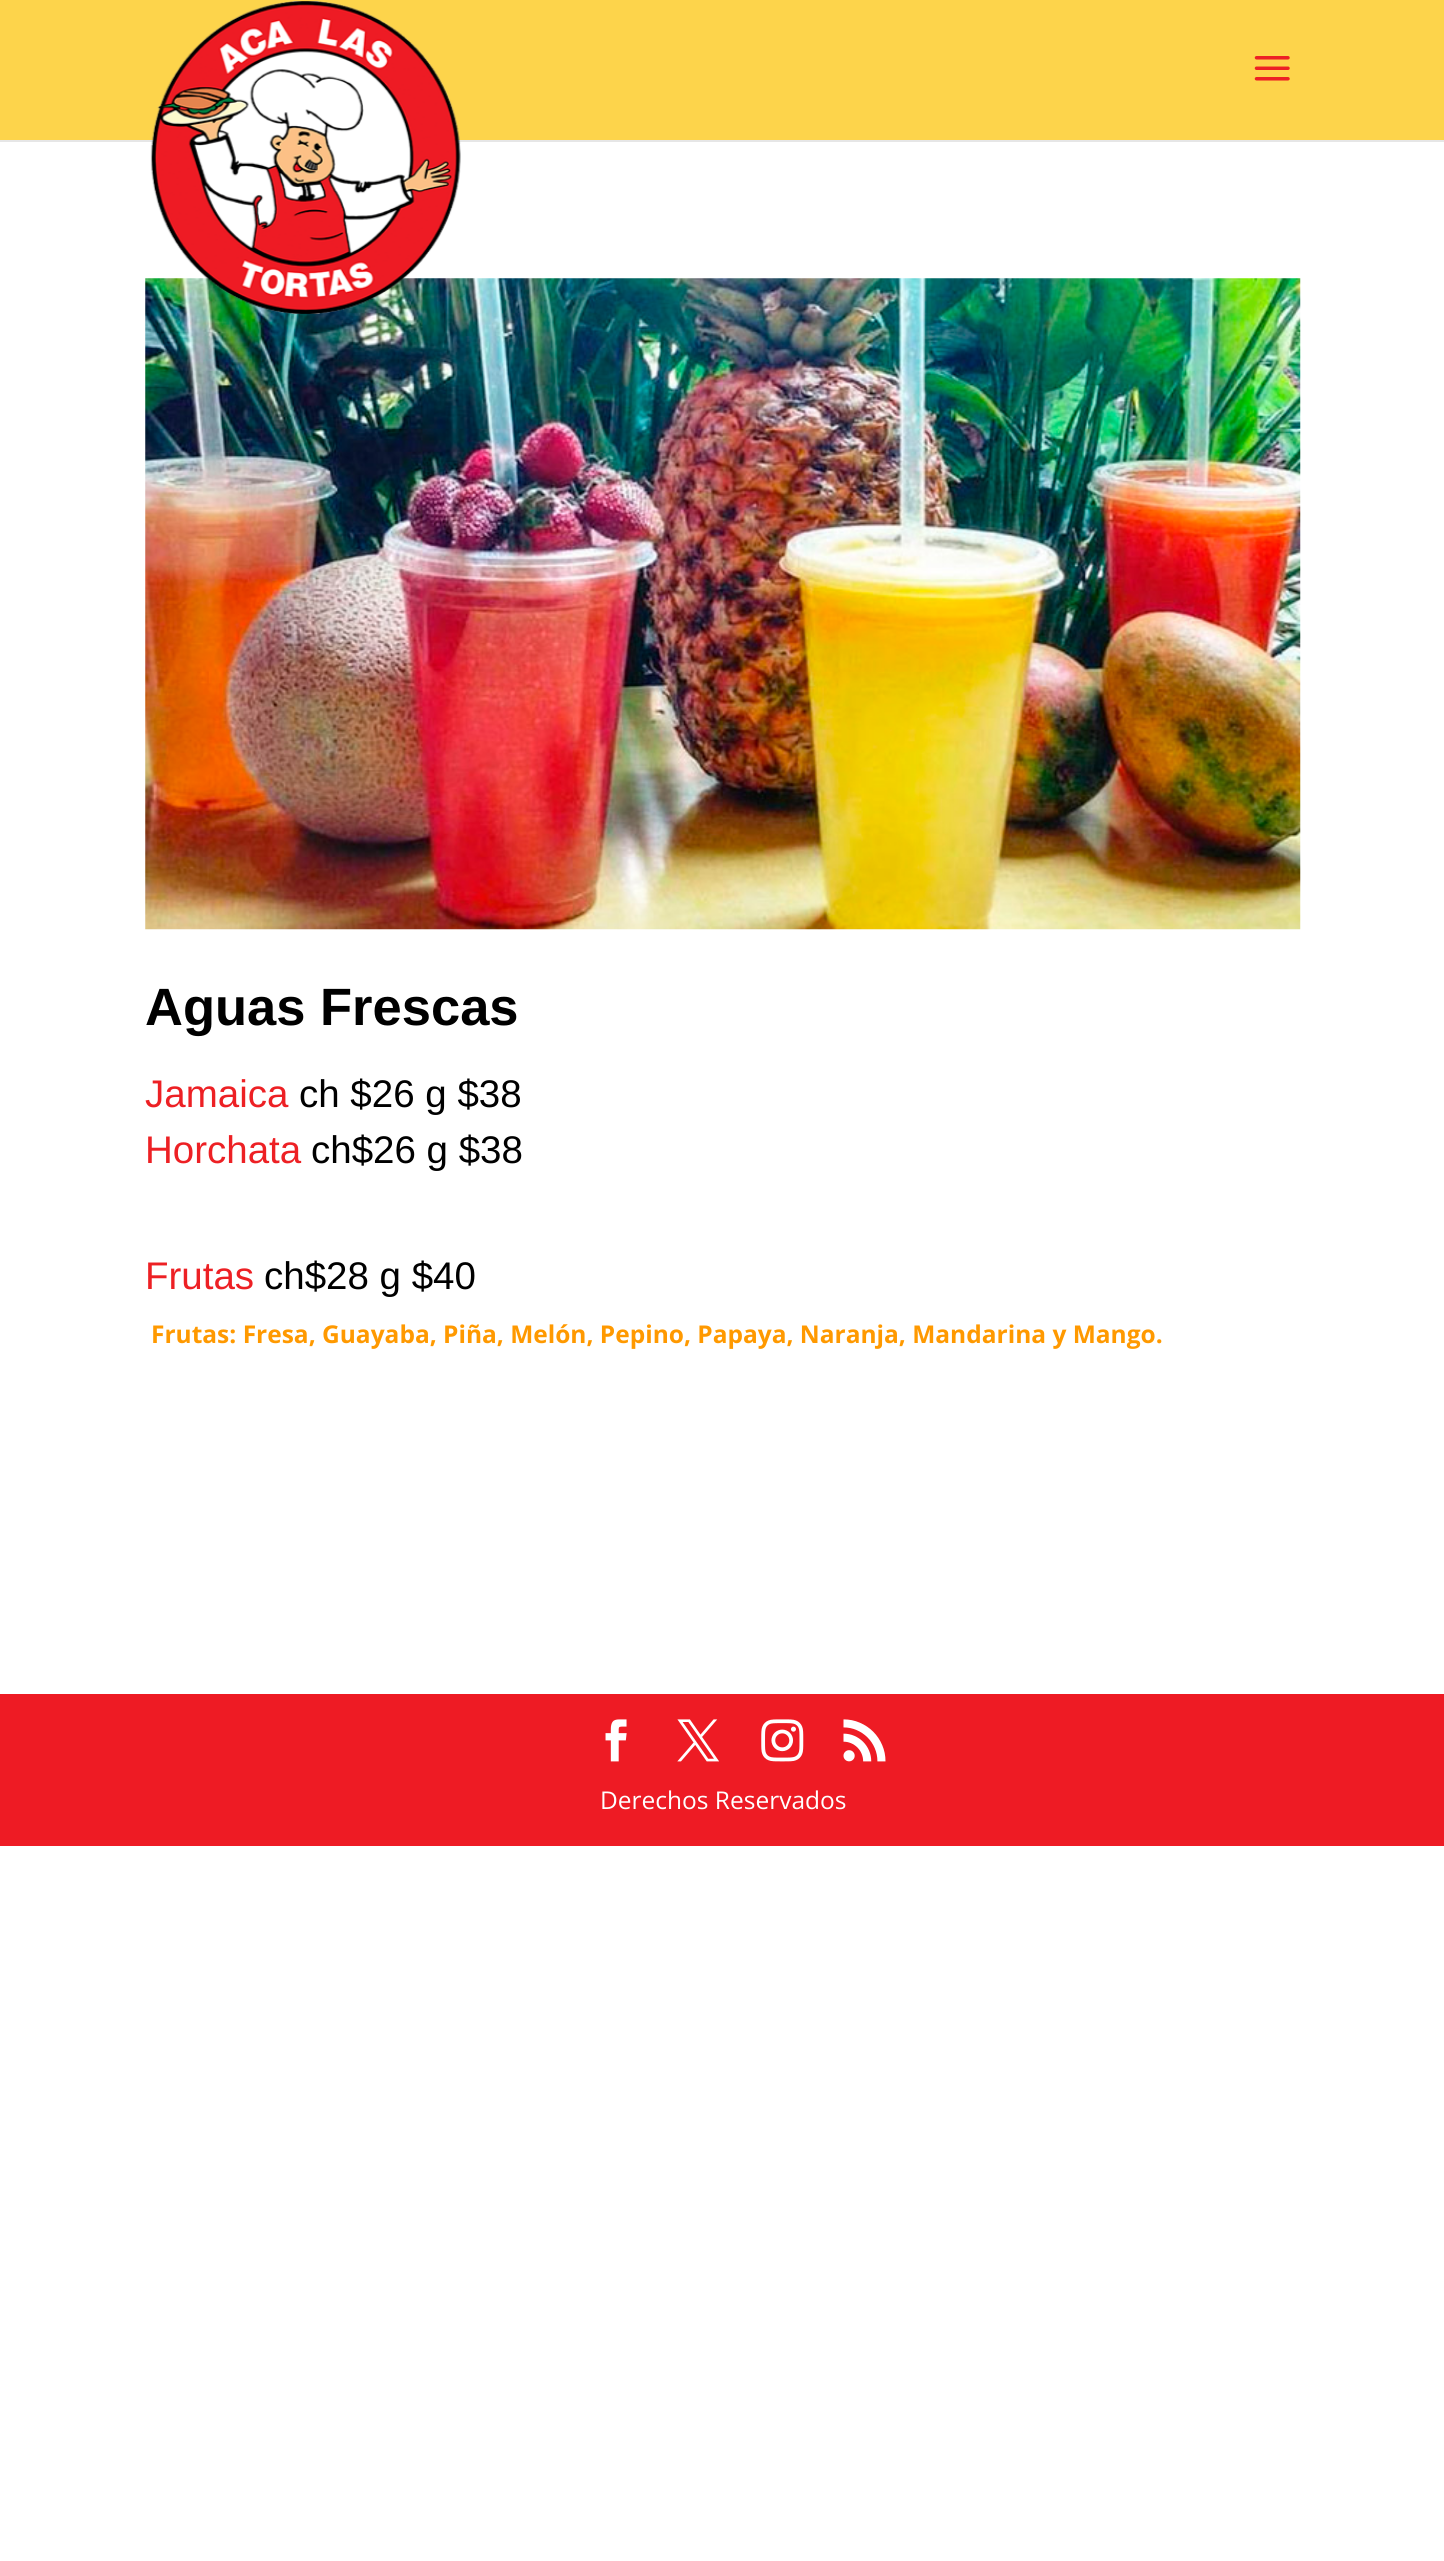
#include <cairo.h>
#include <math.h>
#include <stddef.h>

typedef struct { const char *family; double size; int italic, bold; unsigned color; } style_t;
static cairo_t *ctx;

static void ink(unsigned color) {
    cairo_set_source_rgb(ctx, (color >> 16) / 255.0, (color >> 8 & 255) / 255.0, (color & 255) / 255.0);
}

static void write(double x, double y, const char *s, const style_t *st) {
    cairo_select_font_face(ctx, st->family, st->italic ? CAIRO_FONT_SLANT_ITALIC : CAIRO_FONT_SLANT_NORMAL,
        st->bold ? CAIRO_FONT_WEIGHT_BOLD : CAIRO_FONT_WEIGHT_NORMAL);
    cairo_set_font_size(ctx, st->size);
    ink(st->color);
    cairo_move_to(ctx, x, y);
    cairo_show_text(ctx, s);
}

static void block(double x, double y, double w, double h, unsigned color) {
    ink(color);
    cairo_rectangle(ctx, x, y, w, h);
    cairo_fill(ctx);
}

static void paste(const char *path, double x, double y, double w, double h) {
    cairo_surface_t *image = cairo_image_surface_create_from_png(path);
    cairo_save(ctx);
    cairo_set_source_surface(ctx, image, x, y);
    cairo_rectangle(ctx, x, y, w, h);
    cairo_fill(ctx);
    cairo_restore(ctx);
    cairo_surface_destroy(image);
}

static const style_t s1 = {"Liberation Sans", 52.5, 0, 1, 0x000000};
static const style_t s2 = {"Liberation Sans", 38.5, 0, 0, 0xed2024};
static const style_t s3 = {"Liberation Sans", 38.5, 0, 0, 0x000000};
static const style_t s4 = {"Open Sans", 24.5, 0, 1, 0xff9900};
static const style_t s5 = {"Open Sans", 24.5, 0, 0, 0xffffff};

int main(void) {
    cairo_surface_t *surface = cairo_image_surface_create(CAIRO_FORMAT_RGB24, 1444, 2561);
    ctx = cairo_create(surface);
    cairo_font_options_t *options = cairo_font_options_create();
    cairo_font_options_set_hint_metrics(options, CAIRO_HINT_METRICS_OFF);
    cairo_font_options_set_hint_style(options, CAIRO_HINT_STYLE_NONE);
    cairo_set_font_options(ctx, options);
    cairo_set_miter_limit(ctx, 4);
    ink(0xffffff);
    cairo_paint(ctx);
    ink(0xe6e6e6);
    cairo_new_path(ctx);
    cairo_move_to(ctx, 0, 140);
    cairo_line_to(ctx, 0, 142);
    cairo_line_to(ctx, 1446, 142);
    cairo_line_to(ctx, 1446, 2);
    cairo_line_to(ctx, 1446, 140);
    cairo_close_path(ctx);
    cairo_fill(ctx);
    block(0, 0, 1444, 140, 0xfdd44b);
    paste("pic3.png", 145, 278, 1156, 652);
    paste("pic1.png", 150, 1, 315, 313);
    paste("pic2.png", 1254, 56, 36, 25);
    write(145, 1025, "Aguas Frescas", &s1);
    write(145, 1107, "Jamaica", &s2);
    write(299, 1107, "ch $26 g $38", &s3);
    write(145, 1163, "Horchata", &s2);
    write(311, 1163, "ch$26 g $38", &s3);
    write(145, 1289, "Frutas", &s2);
    write(264, 1289, "ch$28 g $40", &s3);
    write(151, 1343, "Frutas: Fresa, Guayaba, Piña, Melón, Pepino, Papaya, Naranja, Mandarina y Mango.", &s4);
    block(0, 1694, 1444, 152, 0xee1b24);
    paste("pic4.png", 605, 1719, 22, 43);
    paste("pic5.png", 677, 1719, 42, 43);
    paste("pic6.png", 761, 1719, 43, 43);
    paste("pic7.png", 843, 1719, 43, 43);
    write(600, 1809, "Derechos Reservados", &s5);
    cairo_surface_write_to_png(surface, "screenshot.png");
    cairo_font_options_destroy(options);
    cairo_destroy(ctx);
    cairo_surface_destroy(surface);
    return 0;
}
